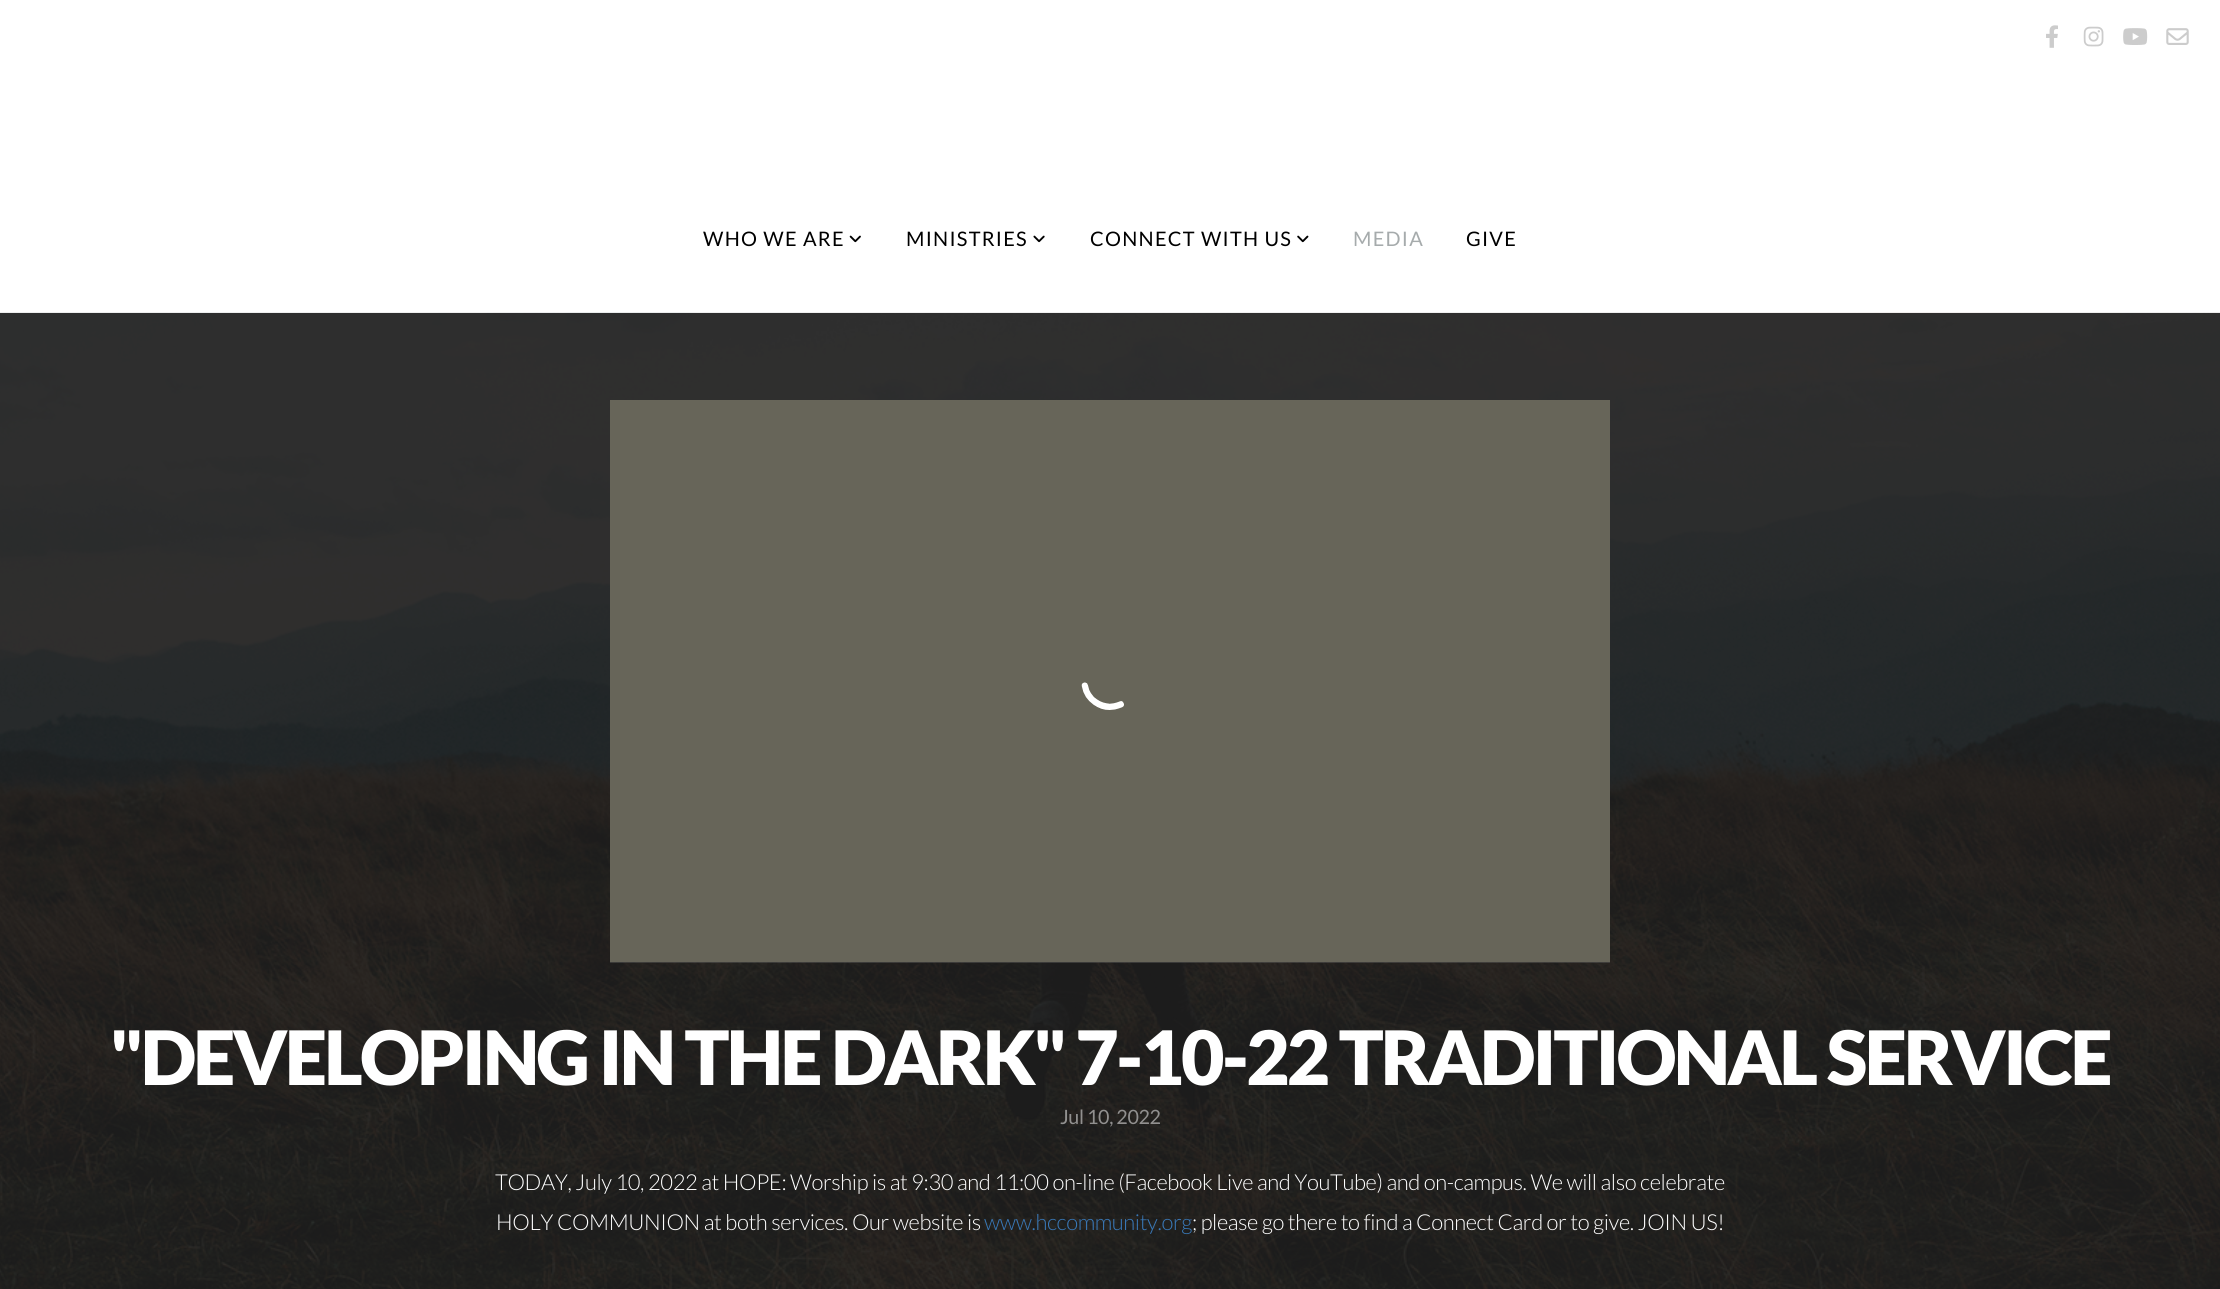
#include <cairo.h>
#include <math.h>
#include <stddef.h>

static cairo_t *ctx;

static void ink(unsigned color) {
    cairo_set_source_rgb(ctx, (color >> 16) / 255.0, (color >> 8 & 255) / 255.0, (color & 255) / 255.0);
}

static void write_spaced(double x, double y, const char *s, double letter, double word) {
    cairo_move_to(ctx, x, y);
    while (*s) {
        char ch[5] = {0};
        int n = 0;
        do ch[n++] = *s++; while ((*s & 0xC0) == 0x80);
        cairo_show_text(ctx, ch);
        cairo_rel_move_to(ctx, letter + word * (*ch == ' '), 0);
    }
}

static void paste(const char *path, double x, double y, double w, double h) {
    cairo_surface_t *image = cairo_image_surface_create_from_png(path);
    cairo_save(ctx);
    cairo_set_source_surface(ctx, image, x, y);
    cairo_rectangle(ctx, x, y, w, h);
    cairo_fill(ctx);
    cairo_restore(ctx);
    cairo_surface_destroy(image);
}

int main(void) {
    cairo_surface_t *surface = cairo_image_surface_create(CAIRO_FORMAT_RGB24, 2220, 1289);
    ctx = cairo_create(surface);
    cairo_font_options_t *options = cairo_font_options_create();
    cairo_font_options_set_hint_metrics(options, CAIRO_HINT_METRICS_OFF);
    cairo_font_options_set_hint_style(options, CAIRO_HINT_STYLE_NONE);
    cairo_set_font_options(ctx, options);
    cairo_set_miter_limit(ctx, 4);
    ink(0xffffff);
    cairo_paint(ctx);
    paste("pic1.png", 2046, 25, 12, 23);
    paste("pic2.png", 2083, 26, 21, 21);
    paste("pic3.png", 2123, 28, 25, 17);
    paste("pic4.png", 2166, 28, 23, 17);
    cairo_select_font_face(ctx, "Lato", CAIRO_FONT_SLANT_NORMAL, CAIRO_FONT_WEIGHT_NORMAL);
    cairo_set_font_size(ctx, 20);
    ink(0x000000);
    write_spaced(703, 246, "WHO WE ARE", 1.25, 0);
    paste("pic5.png", 849, 235, 12, 8);
    write_spaced(906, 246, "MINISTRIES", 1.25, 0);
    paste("pic6.png", 1033, 235, 12, 8);
    write_spaced(1090, 246, "CONNECT WITH US", 1.25, 0);
    paste("pic7.png", 1297, 235, 12, 8);
    ink(0xa6abac);
    write_spaced(1353, 246, "MEDIA", 1.25, 0);
    ink(0x000000);
    write_spaced(1466, 246, "GIVE", 1.25, 0);
    paste("pic8.png", 0, 312, 2220, 977);
    paste("pic9.png", 610, 400, 1000, 563);
    cairo_select_font_face(ctx, "Lato Black", CAIRO_FONT_SLANT_NORMAL, CAIRO_FONT_WEIGHT_NORMAL);
    cairo_set_font_size(ctx, 75);
    ink(0xffffff);
    write_spaced(110, 1085, "\"DEVELOPING IN THE DARK\" 7-10-22 TRADITIONAL SERVICE", -3, 0);
    cairo_select_font_face(ctx, "Lato", CAIRO_FONT_SLANT_NORMAL, CAIRO_FONT_WEIGHT_NORMAL);
    cairo_set_font_size(ctx, 19.75);
    ink(0x91908f);
    write_spaced(1060, 1124, "Jul 10, 2022", -0.4, 0);
    cairo_select_font_face(ctx, "Lato Light", CAIRO_FONT_SLANT_NORMAL, CAIRO_FONT_WEIGHT_NORMAL);
    cairo_set_font_size(ctx, 22);
    ink(0xffffff);
    write_spaced(495, 1190, "TODAY, July 10, 2022 at HOPE: Worship is at 9:30 and 11:00 on-line (Facebook Live and YouTube) and on-campus. We will also celebrate", -0.4, 0);
    write_spaced(496, 1230, "HOLY COMMUNION at both services. Our website is", -0.4, 0);
    ink(0x3979b9);
    write_spaced(984, 1230, "www.hccommunity.org", -0.4, 0);
    ink(0xffffff);
    write_spaced(1192, 1230, "; please go there to find a Connect Card or to give. JOIN US!", -0.4, 0);
    cairo_surface_write_to_png(surface, "screenshot.png");
    cairo_font_options_destroy(options);
    cairo_destroy(ctx);
    cairo_surface_destroy(surface);
    return 0;
}
